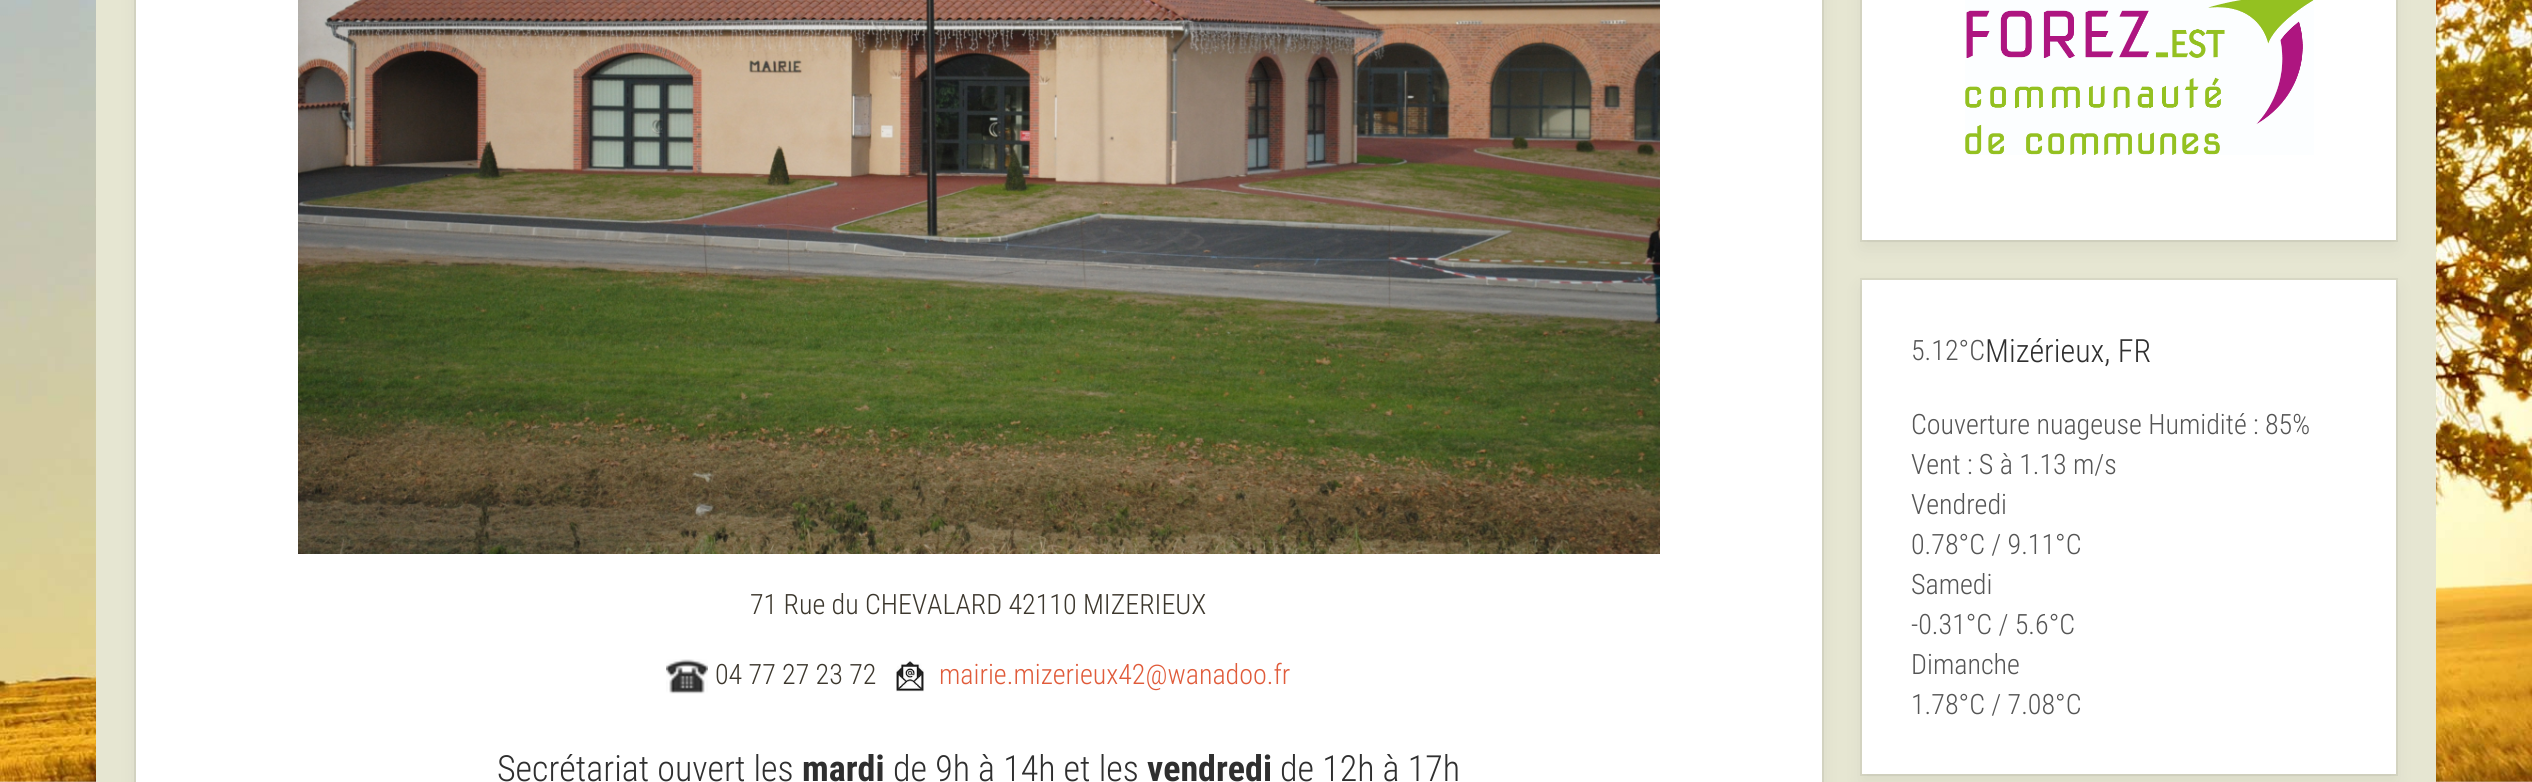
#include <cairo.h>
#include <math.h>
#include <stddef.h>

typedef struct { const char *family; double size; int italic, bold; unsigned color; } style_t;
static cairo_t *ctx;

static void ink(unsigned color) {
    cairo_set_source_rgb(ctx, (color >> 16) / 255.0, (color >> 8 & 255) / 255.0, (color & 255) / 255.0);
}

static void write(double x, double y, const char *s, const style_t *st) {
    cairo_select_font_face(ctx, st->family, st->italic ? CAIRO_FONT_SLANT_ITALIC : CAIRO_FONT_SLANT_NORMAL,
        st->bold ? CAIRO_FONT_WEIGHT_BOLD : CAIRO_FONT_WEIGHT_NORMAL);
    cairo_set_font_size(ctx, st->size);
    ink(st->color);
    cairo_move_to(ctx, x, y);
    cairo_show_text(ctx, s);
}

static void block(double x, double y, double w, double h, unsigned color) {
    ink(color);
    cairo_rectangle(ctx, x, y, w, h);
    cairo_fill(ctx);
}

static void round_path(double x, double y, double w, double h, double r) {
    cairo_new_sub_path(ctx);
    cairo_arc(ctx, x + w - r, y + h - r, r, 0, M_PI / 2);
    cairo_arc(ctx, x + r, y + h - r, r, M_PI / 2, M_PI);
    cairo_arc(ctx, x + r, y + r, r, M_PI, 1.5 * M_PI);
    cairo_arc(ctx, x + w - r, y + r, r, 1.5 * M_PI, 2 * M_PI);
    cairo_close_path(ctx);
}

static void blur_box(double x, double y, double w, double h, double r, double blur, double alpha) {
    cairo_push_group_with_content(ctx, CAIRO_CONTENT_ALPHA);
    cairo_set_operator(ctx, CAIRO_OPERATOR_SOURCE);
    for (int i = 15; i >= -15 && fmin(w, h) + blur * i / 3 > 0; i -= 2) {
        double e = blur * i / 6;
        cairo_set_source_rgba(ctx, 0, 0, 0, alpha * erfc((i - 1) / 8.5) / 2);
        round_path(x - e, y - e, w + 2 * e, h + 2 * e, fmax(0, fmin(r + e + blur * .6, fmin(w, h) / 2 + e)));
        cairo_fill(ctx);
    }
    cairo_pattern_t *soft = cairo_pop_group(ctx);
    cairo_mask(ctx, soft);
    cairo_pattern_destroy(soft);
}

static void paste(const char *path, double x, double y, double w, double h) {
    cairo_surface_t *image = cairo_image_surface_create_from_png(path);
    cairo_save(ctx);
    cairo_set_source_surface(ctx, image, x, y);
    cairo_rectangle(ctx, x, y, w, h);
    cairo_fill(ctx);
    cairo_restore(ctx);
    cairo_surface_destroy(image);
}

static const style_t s1 = {"Roboto Condensed Light", 28, 0, 0, 0x3c372d};
static const style_t s2 = {"Roboto Condensed Light", 28, 0, 0, 0xe05b3a};
static const style_t s3 = {"Roboto Condensed Light", 36, 0, 0, 0x2f2f2f};
static const style_t s4 = {"Roboto Condensed", 36, 0, 1, 0x2f2f2f};
static const style_t s5 = {"Roboto Condensed Light", 32, 0, 0, 0x2f2f2f};
static const style_t s6 = {"Roboto Condensed Light", 28, 0, 0, 0x555555};

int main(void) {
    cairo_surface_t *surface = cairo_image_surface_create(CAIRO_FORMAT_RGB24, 2532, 782);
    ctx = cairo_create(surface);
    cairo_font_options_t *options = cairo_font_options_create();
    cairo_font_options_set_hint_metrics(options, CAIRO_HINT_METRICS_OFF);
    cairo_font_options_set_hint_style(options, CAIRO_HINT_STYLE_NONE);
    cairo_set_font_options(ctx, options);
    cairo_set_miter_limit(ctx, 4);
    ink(0xffffff);
    cairo_paint(ctx);
    paste("pic1.png", 0, 0, 2532, 782);
    block(96, 0, 2340, 782, 0xe6e6d2);
    ink(0x000000);
    blur_box(136, -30, 1686, 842, 0, 10, 0.06);
    cairo_rectangle(ctx, 135, -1, 1688, 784);
    ink(0xd2d2c0);
    cairo_stroke(ctx);
    block(136, 0, 1686, 782, 0xffffff);
    paste("pic2.png", 298, 0, 1362, 554);
    write(750, 614, "71 Rue du CHEVALARD 42110 MIZERIEUX", &s1);
    paste("pic3.png", 666, 659, 42, 35);
    write(715, 684, "04 77 27 23 72", &s1);
    paste("pic4.png", 896, 660, 28, 32);
    write(939, 684, "mairie.mizerieux42@wanadoo.fr", &s2);
    write(497, 781, "Secrétariat ouvert les", &s3);
    write(802, 781, "mardi", &s4);
    write(893, 781, "de 9h à 14h et les", &s3);
    write(1147, 781, "vendredi", &s4);
    write(1280, 781, "de 12h à 17h", &s3);
    ink(0x000000);
    blur_box(1862, -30, 534, 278, 0, 10, 0.06);
    cairo_rectangle(ctx, 1861, -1, 536, 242);
    cairo_set_source_rgba(ctx, 0, 0, 0, 0.06);
    cairo_stroke(ctx);
    block(1862, 0, 534, 240, 0xffffff);
    paste("pic5.png", 1965, 0, 349, 155);
    ink(0x000000);
    blur_box(1862, 288, 534, 494, 0, 10, 0.06);
    cairo_rectangle(ctx, 1861, 279, 536, 496);
    cairo_set_source_rgba(ctx, 0, 0, 0, 0.06);
    cairo_stroke(ctx);
    block(1862, 280, 534, 494, 0xffffff);
    write(1985, 362, "Mizérieux, FR", &s5);
    write(1911, 434, "Couverture nuageuse Humidité : 85%", &s6);
    write(1911, 474, "Vent : S à 1.13 m/s", &s6);
    write(1911, 360, "5.12°C", &s6);
    write(1911, 514, "Vendredi", &s6);
    write(1911, 554, "0.78°C / 9.11°C", &s6);
    write(1911, 594, "Samedi", &s6);
    write(1911, 634, "-0.31°C / 5.6°C", &s6);
    write(1911, 674, "Dimanche", &s6);
    write(1911, 714, "1.78°C / 7.08°C", &s6);
    cairo_surface_write_to_png(surface, "screenshot.png");
    cairo_font_options_destroy(options);
    cairo_destroy(ctx);
    cairo_surface_destroy(surface);
    return 0;
}
